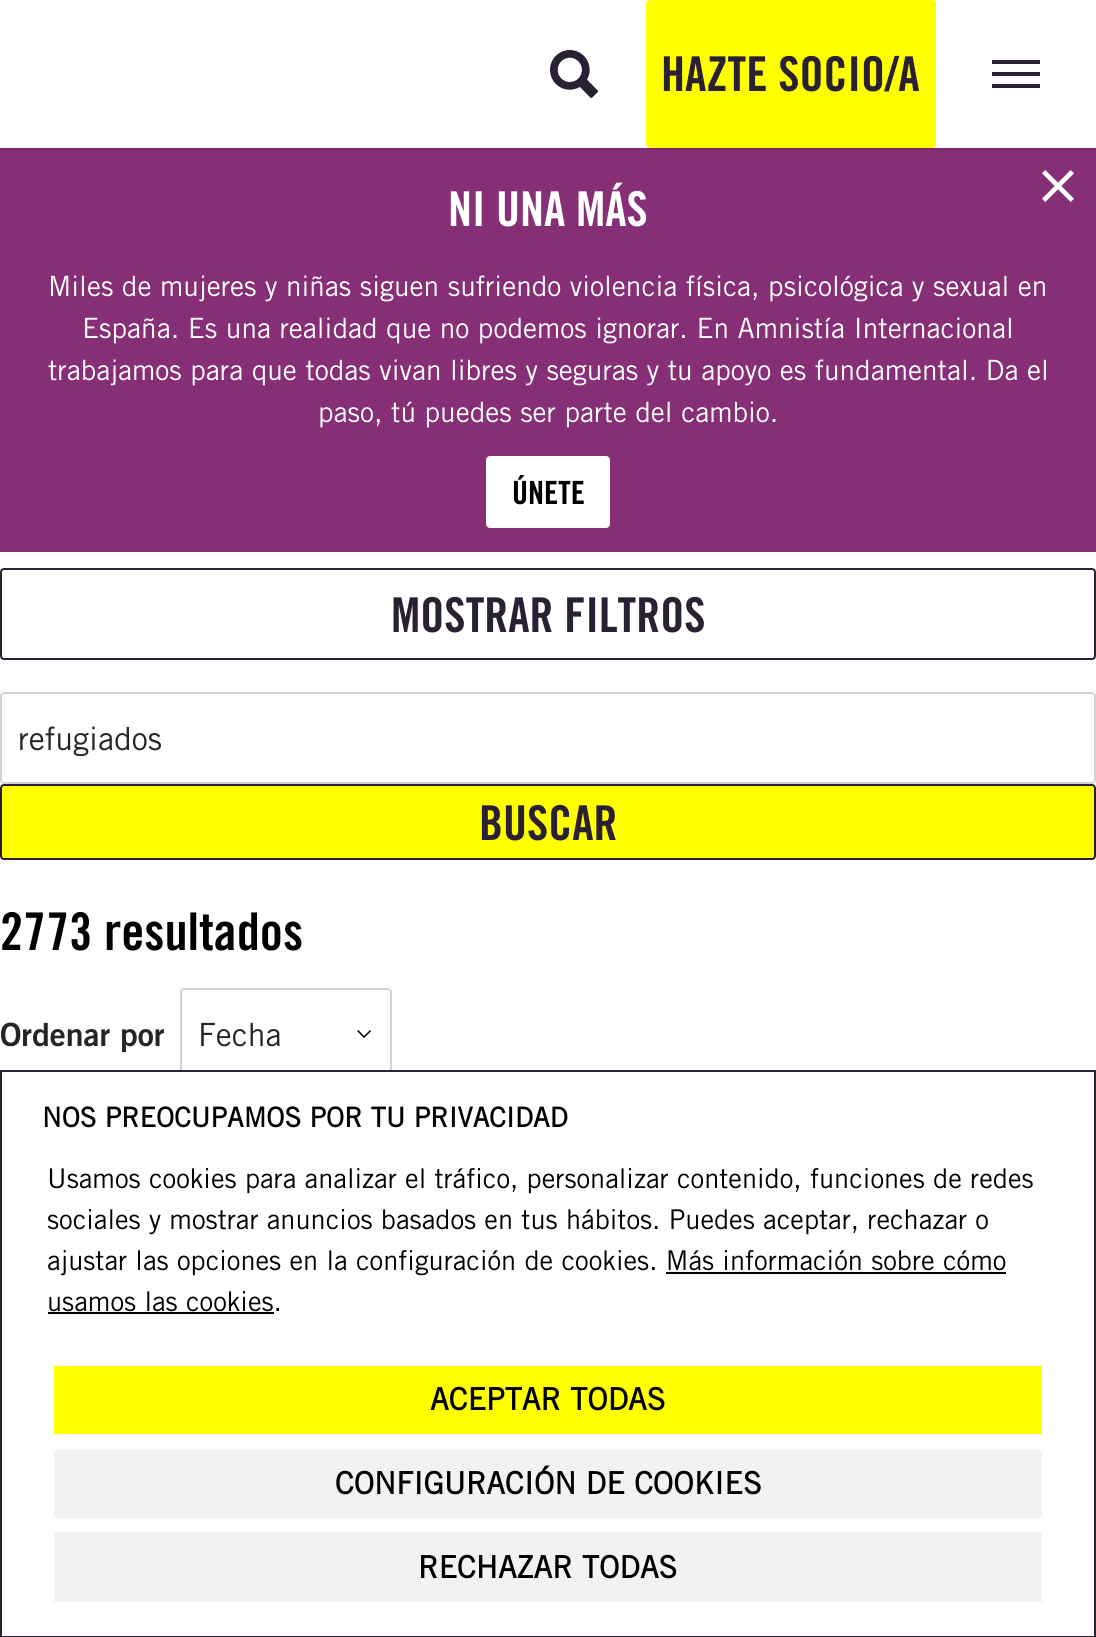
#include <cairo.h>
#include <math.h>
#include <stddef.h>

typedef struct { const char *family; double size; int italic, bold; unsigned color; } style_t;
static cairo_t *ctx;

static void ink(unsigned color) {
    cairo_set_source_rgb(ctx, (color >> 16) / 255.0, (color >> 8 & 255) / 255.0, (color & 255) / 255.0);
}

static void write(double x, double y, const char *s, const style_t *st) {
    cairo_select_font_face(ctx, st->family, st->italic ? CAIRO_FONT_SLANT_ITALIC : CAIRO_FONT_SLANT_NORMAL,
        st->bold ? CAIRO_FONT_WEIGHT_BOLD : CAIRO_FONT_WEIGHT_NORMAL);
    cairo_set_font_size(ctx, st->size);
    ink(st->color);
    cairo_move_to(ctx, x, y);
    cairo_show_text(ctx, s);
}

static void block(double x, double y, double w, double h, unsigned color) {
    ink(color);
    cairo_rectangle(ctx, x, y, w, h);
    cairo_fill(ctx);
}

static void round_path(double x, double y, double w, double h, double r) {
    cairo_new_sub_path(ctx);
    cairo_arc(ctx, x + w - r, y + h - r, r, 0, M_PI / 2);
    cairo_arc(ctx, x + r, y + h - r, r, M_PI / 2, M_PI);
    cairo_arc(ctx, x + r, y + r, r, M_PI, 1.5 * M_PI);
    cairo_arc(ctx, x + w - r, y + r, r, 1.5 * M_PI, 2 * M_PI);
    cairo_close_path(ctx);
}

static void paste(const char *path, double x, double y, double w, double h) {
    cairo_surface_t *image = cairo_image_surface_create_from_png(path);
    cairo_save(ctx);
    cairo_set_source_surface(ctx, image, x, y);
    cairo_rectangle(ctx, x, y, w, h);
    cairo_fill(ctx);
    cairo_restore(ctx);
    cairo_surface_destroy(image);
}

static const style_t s1 = {"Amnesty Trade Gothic", 48, 0, 1, 0x2a2034};
static const style_t s2 = {"Amnesty Trade Gothic", 48, 0, 1, 0xffffff};
static const style_t s3 = {"Amnesty Trade Gothic", 28, 0, 0, 0xffffff};
static const style_t s4 = {"Amnesty Trade Gothic", 32, 0, 1, 0x000000};
static const style_t s5 = {"Amnesty Trade Gothic", 32, 0, 0, 0x252525};
static const style_t s6 = {"Amnesty Trade Gothic", 52, 0, 1, 0x000000};
static const style_t s7 = {"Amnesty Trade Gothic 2", 32, 0, 1, 0x252525};
static const style_t s8 = {"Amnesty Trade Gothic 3", 27.2, 0, 1, 0x000000};
static const style_t s9 = {"Amnesty Trade Gothic", 27.2, 0, 0, 0x000000};
static const style_t s10 = {"Amnesty Trade Gothic 3", 30.6, 0, 1, 0x000000};

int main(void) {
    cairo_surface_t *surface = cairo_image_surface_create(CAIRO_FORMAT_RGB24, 1096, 1637);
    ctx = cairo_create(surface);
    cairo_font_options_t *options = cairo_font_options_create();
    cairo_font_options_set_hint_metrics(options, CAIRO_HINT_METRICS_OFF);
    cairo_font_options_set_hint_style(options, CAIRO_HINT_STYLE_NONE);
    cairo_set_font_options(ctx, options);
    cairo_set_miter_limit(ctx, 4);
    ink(0xffffff);
    cairo_paint(ctx);
    block(0, 148, 1096, 2, 0x7a2a6a);
    paste("pic1.png", 550, 50, 48, 48);
    ink(0xffff00);
    round_path(646, 0, 290, 148, 4);
    cairo_fill(ctx);
    write(661, 91, "HAZTE SOCIO/A", &s1);
    block(992, 72, 48, 4, 0x2a2034);
    block(992, 60, 48, 4, 0x2a2034);
    block(992, 84, 48, 4, 0x2a2034);
    block(0, 150, 1096, 402, 0x872f76);
    write(448, 226, "NI UNA MÁS", &s2);
    write(48, 296, "Miles de mujeres y niñas siguen sufriendo violencia física, psicológica y sexual en", &s3);
    write(82, 338, "España. Es una realidad que no podemos ignorar. En Amnistía Internacional", &s3);
    write(48, 380, "trabajamos para que todas vivan libres y seguras y tu apoyo es fundamental. Da el", &s3);
    write(318, 422, "paso, tú puedes ser parte del cambio.", &s3);
    round_path(487, 457, 122, 70, 3);
    cairo_fill_preserve(ctx);
    cairo_stroke(ctx);
    write(512, 504, "ÚNETE", &s4);
    paste("pic2.png", 1042, 170, 32, 32);
    round_path(1, 569, 1094, 90, 3);
    ink(0x2a2034);
    cairo_stroke(ctx);
    write(391, 632, "MOSTRAR FILTROS", &s1);
    round_path(1, 693, 1094, 90, 3);
    ink(0xd3d3d3);
    cairo_stroke(ctx);
    write(18, 750, "refugiados", &s5);
    ink(0xffff00);
    round_path(1, 785, 1094, 74, 3);
    cairo_fill_preserve(ctx);
    ink(0x2a2034);
    cairo_stroke(ctx);
    write(479, 840, "BUSCAR", &s1);
    write(0, 950, "2773 resultados", &s6);
    write(0, 1046, "Ordenar por", &s7);
    round_path(181, 989, 210, 90, 3);
    ink(0xd3d3d3);
    cairo_stroke(ctx);
    write(198, 1046, "Fecha", &s5);
    paste("pic3.png", 357, 1030, 14, 8);
    block(180, 1072, 212, 8, 0xffffff);
    cairo_rectangle(ctx, 1, 1071, 1094, 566);
    ink(0x2a2034);
    cairo_stroke(ctx);
    write(42, 1127, "NOS PREOCUPAMOS POR TU PRIVACIDAD", &s8);
    write(47, 1188, "Usamos cookies para analizar el tráfico, personalizar contenido, funciones de redes", &s9);
    write(47, 1229, "sociales y mostrar anuncios basados en tus hábitos. Puedes aceptar, rechazar o", &s9);
    write(47, 1270, "ajustar las opciones en la configuración de cookies. Más información sobre cómo", &s9);
    write(47, 1311, "usamos las cookies.", &s9);
    block(666, 1272, 340, 2, 0x000000);
    block(48, 1312, 226, 2, 0x000000);
    block(54, 1366, 988, 68, 0xffff00);
    write(430, 1410, "ACEPTAR TODAS", &s10);
    block(54, 1450, 988, 68, 0xf2f2f2);
    write(335, 1494, "CONFIGURACIÓN DE COOKIES", &s10);
    block(54, 1532, 988, 70, 0xf2f2f2);
    write(418, 1578, "RECHAZAR TODAS", &s10);
    cairo_surface_write_to_png(surface, "screenshot.png");
    cairo_font_options_destroy(options);
    cairo_destroy(ctx);
    cairo_surface_destroy(surface);
    return 0;
}
